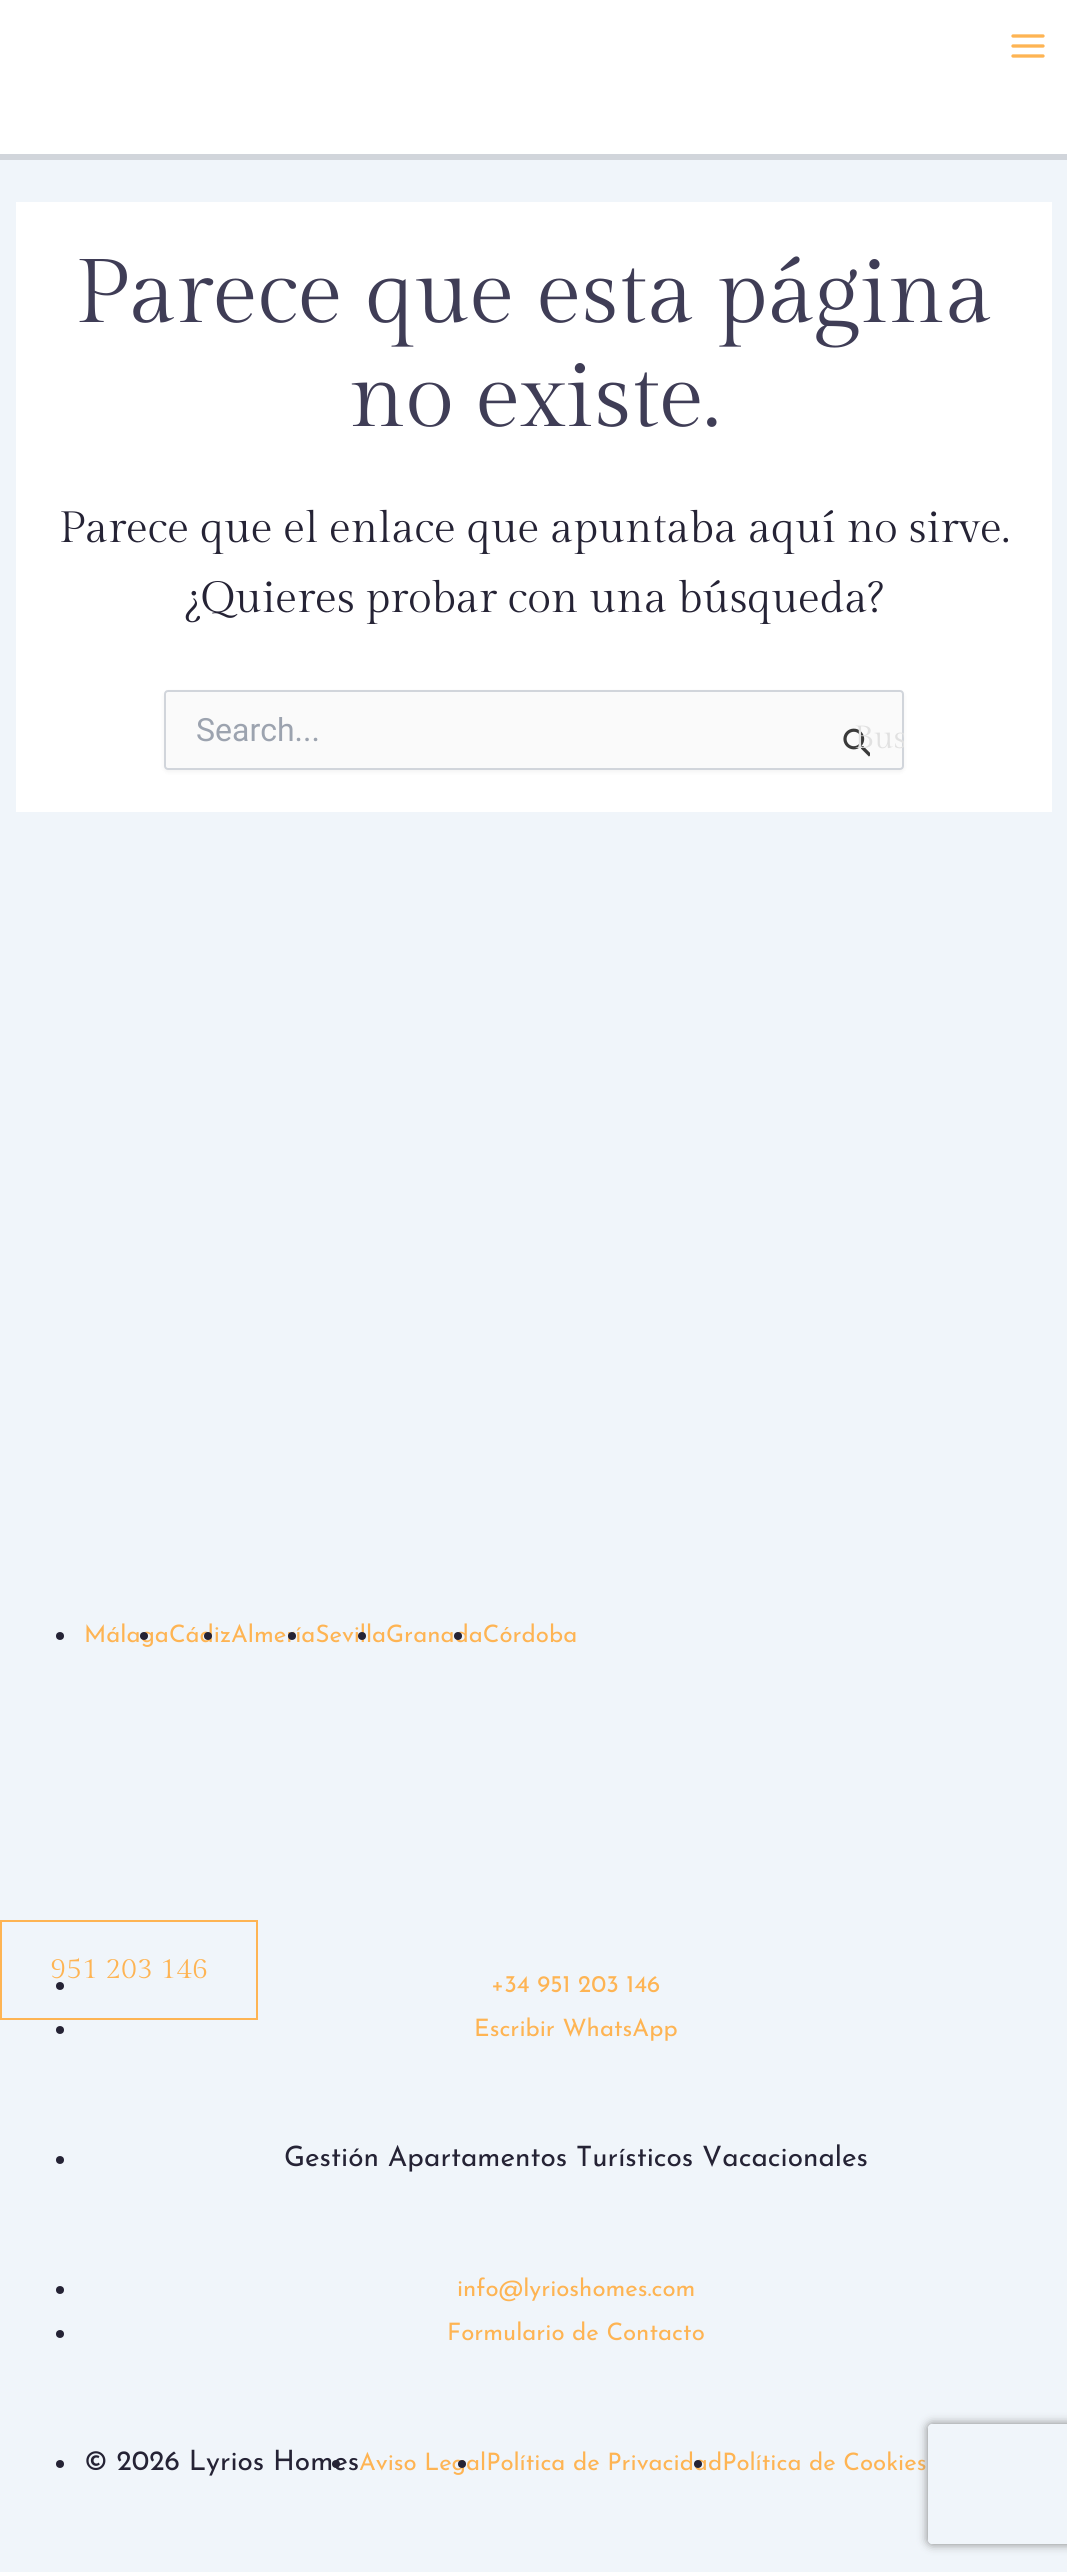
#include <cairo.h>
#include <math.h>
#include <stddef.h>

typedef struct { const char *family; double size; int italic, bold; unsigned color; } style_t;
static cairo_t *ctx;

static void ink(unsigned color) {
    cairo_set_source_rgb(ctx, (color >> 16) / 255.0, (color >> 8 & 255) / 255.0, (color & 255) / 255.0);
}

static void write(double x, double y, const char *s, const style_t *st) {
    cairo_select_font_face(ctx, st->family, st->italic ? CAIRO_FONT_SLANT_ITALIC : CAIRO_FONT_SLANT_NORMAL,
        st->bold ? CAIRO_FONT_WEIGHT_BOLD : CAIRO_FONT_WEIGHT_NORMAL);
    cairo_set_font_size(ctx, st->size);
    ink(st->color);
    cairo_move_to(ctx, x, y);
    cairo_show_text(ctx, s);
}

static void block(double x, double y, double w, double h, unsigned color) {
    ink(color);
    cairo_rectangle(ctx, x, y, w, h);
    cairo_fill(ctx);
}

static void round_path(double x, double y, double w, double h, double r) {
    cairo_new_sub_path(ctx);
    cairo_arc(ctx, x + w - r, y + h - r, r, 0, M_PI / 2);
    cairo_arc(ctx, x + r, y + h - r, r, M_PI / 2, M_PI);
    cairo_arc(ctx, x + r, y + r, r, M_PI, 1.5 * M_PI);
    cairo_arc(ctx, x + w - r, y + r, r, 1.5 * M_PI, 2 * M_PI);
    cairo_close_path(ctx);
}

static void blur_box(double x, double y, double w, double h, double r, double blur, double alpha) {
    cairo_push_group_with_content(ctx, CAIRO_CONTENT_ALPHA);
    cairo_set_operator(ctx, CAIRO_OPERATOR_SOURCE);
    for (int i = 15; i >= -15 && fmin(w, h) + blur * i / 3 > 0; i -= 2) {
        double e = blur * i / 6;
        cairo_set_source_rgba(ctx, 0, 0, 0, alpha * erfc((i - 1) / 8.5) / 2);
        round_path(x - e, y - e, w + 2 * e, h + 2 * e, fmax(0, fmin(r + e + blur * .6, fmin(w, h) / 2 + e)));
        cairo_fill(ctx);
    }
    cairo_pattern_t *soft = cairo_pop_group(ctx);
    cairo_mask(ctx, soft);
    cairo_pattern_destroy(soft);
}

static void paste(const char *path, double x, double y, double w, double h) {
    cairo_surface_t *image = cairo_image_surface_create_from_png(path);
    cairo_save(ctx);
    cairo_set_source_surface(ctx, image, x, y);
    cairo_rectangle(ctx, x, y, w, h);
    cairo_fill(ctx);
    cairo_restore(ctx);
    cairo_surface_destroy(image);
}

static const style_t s1 = {"Gilda Display", 90, 0, 0, 0x3f3d56};
static const style_t s2 = {"Gilda Display", 43.75, 0, 0, 0x252335};
static const style_t s3 = {"Roboto", 32, 0, 0, 0x9ca3af};
static const style_t s4 = {"Gilda Display", 32, 0, 0, 0xe1e1e1};
static const style_t s5 = {"Josefin Sans", 24, 0, 0, 0xfeb453};
static const style_t s6 = {"Gilda Display", 29, 0, 0, 0xfeb453};
static const style_t s7 = {"Josefin Sans", 28, 0, 0, 0x252335};

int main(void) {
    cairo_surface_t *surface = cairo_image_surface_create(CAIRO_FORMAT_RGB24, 1067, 2572);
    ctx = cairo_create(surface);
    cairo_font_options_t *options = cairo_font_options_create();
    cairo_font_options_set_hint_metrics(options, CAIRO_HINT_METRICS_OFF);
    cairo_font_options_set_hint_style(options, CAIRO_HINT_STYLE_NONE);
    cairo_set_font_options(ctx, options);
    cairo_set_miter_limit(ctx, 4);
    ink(0xf0f5fa);
    cairo_paint(ctx);
    block(0, 0, 1067, 154, 0xffffff);
    block(0, 154, 1067, 6, 0xd1d5db);
    paste("pic1.png", 1011, 34, 34, 24);
    block(16, 202, 1036, 610, 0xffffff);
    write(75, 322, "Parece que esta página", &s1);
    write(349, 426, "no existe.", &s1);
    write(59, 542, "Parece que el enlace que apuntaba aquí no sirve.", &s2);
    write(185, 612, "¿Quieres probar con una búsqueda?", &s2);
    ink(0x000000);
    blur_box(164, 692, 740, 80, 4, 2, 0.05);
    ink(0xfafafa);
    round_path(165, 691, 738, 78, 3);
    cairo_fill_preserve(ctx);
    ink(0xd1d5db);
    cairo_stroke(ctx);
    write(196, 741, "Search...", &s3);
    paste("pic2.png", 843, 728, 27, 29);
    cairo_save(ctx);
    round_path(814, 690, 90, 100, 4);
    cairo_clip(ctx);
    write(854, 748, "Bus", &s4);
    cairo_restore(ctx);
    ink(0x252335);
    cairo_new_path(ctx);
    cairo_arc(ctx, 60, 1636, 4, 0, 2 * M_PI);
    cairo_fill(ctx);
    write(84, 1642, "MálagaCádizAlmeríaSevillaGranadaCórdoba", &s5);
    ink(0x252335);
    cairo_new_path(ctx);
    cairo_arc(ctx, 144, 1636, 4, 0, 2 * M_PI);
    cairo_fill(ctx);
    cairo_arc(ctx, 208, 1636, 4, 0, 2 * M_PI);
    cairo_fill(ctx);
    cairo_arc(ctx, 292, 1636, 4, 0, 2 * M_PI);
    cairo_fill(ctx);
    cairo_arc(ctx, 362, 1636, 4, 0, 2 * M_PI);
    cairo_fill(ctx);
    cairo_arc(ctx, 458, 1636, 4, 0, 2 * M_PI);
    cairo_fill(ctx);
    cairo_arc(ctx, 60, 1986, 4, 0, 2 * M_PI);
    cairo_fill(ctx);
    cairo_rectangle(ctx, 1, 1921, 256, 98);
    ink(0xfeb453);
    cairo_stroke(ctx);
    write(50, 1978, "951 203 146", &s6);
    write(491, 1992, "+34 951 203 146", &s5);
    ink(0x252335);
    cairo_new_path(ctx);
    cairo_arc(ctx, 60, 2030, 4, 0, 2 * M_PI);
    cairo_fill(ctx);
    write(474, 2036, "Escribir WhatsApp", &s5);
    ink(0x252335);
    cairo_new_path(ctx);
    cairo_arc(ctx, 60, 2160, 4, 0, 2 * M_PI);
    cairo_fill(ctx);
    write(284, 2166, "Gestión Apartamentos Turísticos Vacacionales", &s7);
    cairo_new_path(ctx);
    cairo_arc(ctx, 60, 2290, 4, 0, 2 * M_PI);
    cairo_fill(ctx);
    write(457, 2296, "info@lyrioshomes.com", &s5);
    ink(0x252335);
    cairo_new_path(ctx);
    cairo_arc(ctx, 60, 2334, 4, 0, 2 * M_PI);
    cairo_fill(ctx);
    write(447, 2340, "Formulario de Contacto", &s5);
    ink(0x252335);
    cairo_new_path(ctx);
    cairo_arc(ctx, 60, 2464, 4, 0, 2 * M_PI);
    cairo_fill(ctx);
    write(84, 2470, "© 2026 Lyrios Homes", &s7);
    cairo_new_path(ctx);
    cairo_arc(ctx, 336, 2464, 4, 0, 2 * M_PI);
    cairo_fill(ctx);
    write(359, 2470, "Aviso LegalPolítica de PrivacidadPolítica de Cookies", &s5);
    ink(0x252335);
    cairo_new_path(ctx);
    cairo_arc(ctx, 462, 2464, 4, 0, 2 * M_PI);
    cairo_fill(ctx);
    cairo_arc(ctx, 698, 2464, 4, 0, 2 * M_PI);
    cairo_fill(ctx);
    cairo_save(ctx);
    cairo_set_fill_rule(ctx, CAIRO_FILL_RULE_EVEN_ODD);
    cairo_new_path(ctx);
    cairo_move_to(ctx, 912, 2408);
    cairo_line_to(ctx, 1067, 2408);
    cairo_line_to(ctx, 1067, 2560);
    cairo_line_to(ctx, 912, 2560);
    cairo_close_path(ctx);
    cairo_move_to(ctx, 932, 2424);
    cairo_line_to(ctx, 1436, 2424);
    cairo_curve_to(ctx, 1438, 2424, 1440, 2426, 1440, 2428);
    cairo_line_to(ctx, 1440, 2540);
    cairo_curve_to(ctx, 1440, 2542, 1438, 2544, 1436, 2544);
    cairo_line_to(ctx, 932, 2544);
    cairo_curve_to(ctx, 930, 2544, 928, 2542, 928, 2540);
    cairo_line_to(ctx, 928, 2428);
    cairo_curve_to(ctx, 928, 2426, 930, 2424, 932, 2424);
    cairo_close_path(ctx);
    cairo_clip(ctx);
    ink(0x808080);
    blur_box(928, 2424, 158, 120, 4, 5, 1);
    cairo_restore(ctx);
    cairo_surface_write_to_png(surface, "screenshot.png");
    cairo_font_options_destroy(options);
    cairo_destroy(ctx);
    cairo_surface_destroy(surface);
    return 0;
}
